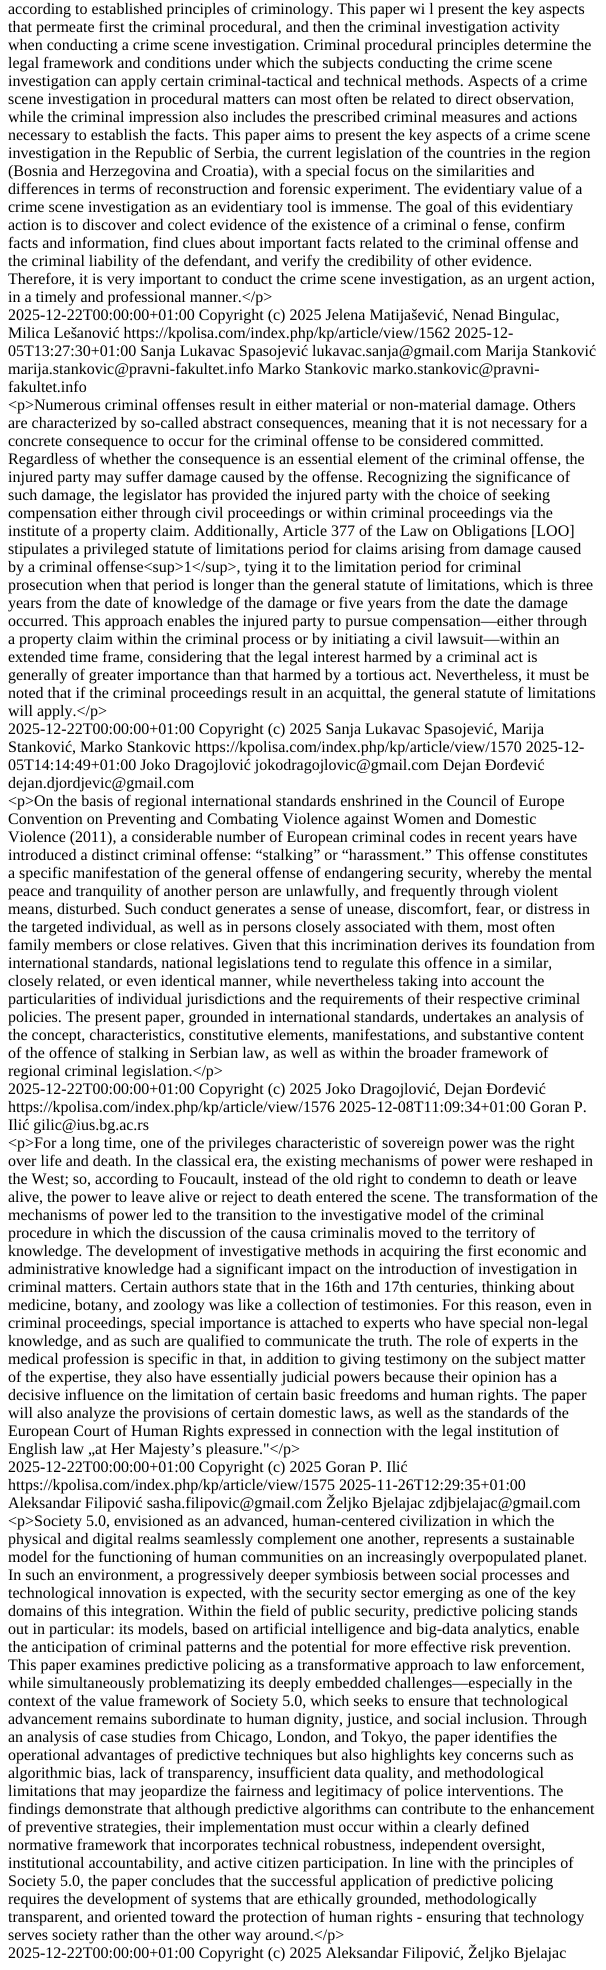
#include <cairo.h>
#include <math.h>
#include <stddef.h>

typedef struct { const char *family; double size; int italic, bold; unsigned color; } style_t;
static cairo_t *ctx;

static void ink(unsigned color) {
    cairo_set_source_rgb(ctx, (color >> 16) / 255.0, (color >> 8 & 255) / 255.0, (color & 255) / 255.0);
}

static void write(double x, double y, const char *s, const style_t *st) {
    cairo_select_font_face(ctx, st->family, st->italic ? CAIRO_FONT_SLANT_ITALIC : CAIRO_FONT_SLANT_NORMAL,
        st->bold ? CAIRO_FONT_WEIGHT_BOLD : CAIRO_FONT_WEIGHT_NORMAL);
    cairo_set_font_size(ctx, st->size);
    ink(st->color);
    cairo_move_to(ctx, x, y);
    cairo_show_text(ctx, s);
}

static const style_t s1 = {"Liberation Serif", 16, 0, 0, 0x000000};

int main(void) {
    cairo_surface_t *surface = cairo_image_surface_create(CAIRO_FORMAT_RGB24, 606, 1970);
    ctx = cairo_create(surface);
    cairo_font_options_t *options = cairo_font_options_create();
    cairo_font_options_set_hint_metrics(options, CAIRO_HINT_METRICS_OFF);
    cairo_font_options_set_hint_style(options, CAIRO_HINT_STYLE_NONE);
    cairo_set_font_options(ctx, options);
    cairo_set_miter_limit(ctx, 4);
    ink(0xffffff);
    cairo_paint(ctx);
    write(8, 14, "according to established principles of criminology. This paper wi l present the key aspects", &s1);
    write(8, 32, "that permeate first the criminal procedural, and then the criminal investigation activity", &s1);
    write(8, 50, "when conducting a crime scene investigation. Criminal procedural principles determine the", &s1);
    write(8, 68, "legal framework and conditions under which the subjects conducting the crime scene", &s1);
    write(8, 86, "investigation can apply certain criminal-tactical and technical methods. Aspects of a crime", &s1);
    write(8, 104, "scene investigation in procedural matters can most often be related to direct observation,", &s1);
    write(8, 122, "while the criminal impression also includes the prescribed criminal measures and actions", &s1);
    write(8, 140, "necessary to establish the facts. This paper aims to present the key aspects of a crime scene", &s1);
    write(8, 158, "investigation in the Republic of Serbia, the current legislation of the countries in the region", &s1);
    write(8, 176, "(Bosnia and Herzegovina and Croatia), with a special focus on the similarities and", &s1);
    write(8, 194, "differences in terms of reconstruction and forensic experiment. The evidentiary value of a", &s1);
    write(8, 212, "crime scene investigation as an evidentiary tool is immense. The goal of this evidentiary", &s1);
    write(8, 230, "action is to discover and colect evidence of the existence of a criminal o fense, confirm", &s1);
    write(8, 248, "facts and information, find clues about important facts related to the criminal offense and", &s1);
    write(8, 266, "the criminal liability of the defendant, and verify the credibility of other evidence.", &s1);
    write(8, 284, "Therefore, it is very important to conduct the crime scene investigation, as an urgent action,", &s1);
    write(8, 302, "in a timely and professional manner.</p>", &s1);
    write(8, 320, "2025-12-22T00:00:00+01:00 Copyright (c) 2025 Jelena Matijašević, Nenad Bingulac,", &s1);
    write(8, 338, "Milica Lešanović https://kpolisa.com/index.php/kp/article/view/1562 2025-12-", &s1);
    write(8, 356, "05T13:27:30+01:00 Sanja Lukavac Spasojević lukavac.sanja@gmail.com Marija Stanković", &s1);
    write(8, 374, "marija.stankovic@pravni-fakultet.info Marko Stankovic marko.stankovic@pravni-", &s1);
    write(8, 392, "fakultet.info", &s1);
    write(8, 410, "<p>Numerous criminal offenses result in either material or non-material damage. Others", &s1);
    write(8, 428, "are characterized by so-called abstract consequences, meaning that it is not necessary for a", &s1);
    write(8, 446, "concrete consequence to occur for the criminal offense to be considered committed.", &s1);
    write(8, 464, "Regardless of whether the consequence is an essential element of the criminal offense, the", &s1);
    write(8, 482, "injured party may suffer damage caused by the offense. Recognizing the significance of", &s1);
    write(8, 500, "such damage, the legislator has provided the injured party with the choice of seeking", &s1);
    write(8, 518, "compensation either through civil proceedings or within criminal proceedings via the", &s1);
    write(8, 536, "institute of a property claim. Additionally, Article 377 of the Law on Obligations [LOO]", &s1);
    write(8, 554, "stipulates a privileged statute of limitations period for claims arising from damage caused", &s1);
    write(8, 572, "by a criminal offense<sup>1</sup>, tying it to the limitation period for criminal", &s1);
    write(8, 590, "prosecution when that period is longer than the general statute of limitations, which is three", &s1);
    write(8, 608, "years from the date of knowledge of the damage or five years from the date the damage", &s1);
    write(8, 626, "occurred. This approach enables the injured party to pursue compensation—either through", &s1);
    write(8, 644, "a property claim within the criminal process or by initiating a civil lawsuit—within an", &s1);
    write(8, 662, "extended time frame, considering that the legal interest harmed by a criminal act is", &s1);
    write(8, 680, "generally of greater importance than that harmed by a tortious act. Nevertheless, it must be", &s1);
    write(8, 698, "noted that if the criminal proceedings result in an acquittal, the general statute of limitations", &s1);
    write(8, 716, "will apply.</p>", &s1);
    write(8, 734, "2025-12-22T00:00:00+01:00 Copyright (c) 2025 Sanja Lukavac Spasojević, Marija", &s1);
    write(8, 752, "Stanković, Marko Stankovic https://kpolisa.com/index.php/kp/article/view/1570 2025-12-", &s1);
    write(8, 770, "05T14:14:49+01:00 Joko Dragojlović jokodragojlovic@gmail.com Dejan Đorđević", &s1);
    write(8, 788, "dejan.djordjevic@gmail.com", &s1);
    write(8, 806, "<p>On the basis of regional international standards enshrined in the Council of Europe", &s1);
    write(8, 824, "Convention on Preventing and Combating Violence against Women and Domestic", &s1);
    write(8, 842, "Violence (2011), a considerable number of European criminal codes in recent years have", &s1);
    write(8, 860, "introduced a distinct criminal offense: “stalking” or “harassment.” This offense constitutes", &s1);
    write(8, 878, "a specific manifestation of the general offense of endangering security, whereby the mental", &s1);
    write(8, 896, "peace and tranquility of another person are unlawfully, and frequently through violent", &s1);
    write(8, 914, "means, disturbed. Such conduct generates a sense of unease, discomfort, fear, or distress in", &s1);
    write(8, 932, "the targeted individual, as well as in persons closely associated with them, most often", &s1);
    write(8, 950, "family members or close relatives. Given that this incrimination derives its foundation from", &s1);
    write(8, 968, "international standards, national legislations tend to regulate this offence in a similar,", &s1);
    write(8, 986, "closely related, or even identical manner, while nevertheless taking into account the", &s1);
    write(8, 1004, "particularities of individual jurisdictions and the requirements of their respective criminal", &s1);
    write(8, 1022, "policies. The present paper, grounded in international standards, undertakes an analysis of", &s1);
    write(8, 1040, "the concept, characteristics, constitutive elements, manifestations, and substantive content", &s1);
    write(8, 1058, "of the offence of stalking in Serbian law, as well as within the broader framework of", &s1);
    write(8, 1076, "regional criminal legislation.</p>", &s1);
    write(8, 1094, "2025-12-22T00:00:00+01:00 Copyright (c) 2025 Joko Dragojlović, Dejan Đorđević", &s1);
    write(8, 1112, "https://kpolisa.com/index.php/kp/article/view/1576 2025-12-08T11:09:34+01:00 Goran P.", &s1);
    write(8, 1130, "Ilić gilic@ius.bg.ac.rs", &s1);
    write(8, 1148, "<p>For a long time, one of the privileges characteristic of sovereign power was the right", &s1);
    write(8, 1166, "over life and death. In the classical era, the existing mechanisms of power were reshaped in", &s1);
    write(8, 1184, "the West; so, according to Foucault, instead of the old right to condemn to death or leave", &s1);
    write(8, 1202, "alive, the power to leave alive or reject to death entered the scene. The transformation of the", &s1);
    write(8, 1220, "mechanisms of power led to the transition to the investigative model of the criminal", &s1);
    write(8, 1238, "procedure in which the discussion of the causa criminalis moved to the territory of", &s1);
    write(8, 1256, "knowledge. The development of investigative methods in acquiring the first economic and", &s1);
    write(8, 1274, "administrative knowledge had a significant impact on the introduction of investigation in", &s1);
    write(8, 1292, "criminal matters. Certain authors state that in the 16th and 17th centuries, thinking about", &s1);
    write(8, 1310, "medicine, botany, and zoology was like a collection of testimonies. For this reason, even in", &s1);
    write(8, 1328, "criminal proceedings, special importance is attached to experts who have special non-legal", &s1);
    write(8, 1346, "knowledge, and as such are qualified to communicate the truth. The role of experts in the", &s1);
    write(8, 1364, "medical profession is specific in that, in addition to giving testimony on the subject matter", &s1);
    write(8, 1382, "of the expertise, they also have essentially judicial powers because their opinion has a", &s1);
    write(8, 1400, "decisive influence on the limitation of certain basic freedoms and human rights. The paper", &s1);
    write(8, 1418, "will also analyze the provisions of certain domestic laws, as well as the standards of the", &s1);
    write(8, 1436, "European Court of Human Rights expressed in connection with the legal institution of", &s1);
    write(8, 1454, "English law „at Her Majestyʼs pleasure.\"</p>", &s1);
    write(8, 1472, "2025-12-22T00:00:00+01:00 Copyright (c) 2025 Goran P. Ilić", &s1);
    write(8, 1490, "https://kpolisa.com/index.php/kp/article/view/1575 2025-11-26T12:29:35+01:00", &s1);
    write(8, 1508, "Aleksandar Filipović sasha.filipovic@gmail.com Željko Bjelajac zdjbjelajac@gmail.com", &s1);
    write(8, 1526, "<p>Society 5.0, envisioned as an advanced, human-centered civilization in which the", &s1);
    write(8, 1544, "physical and digital realms seamlessly complement one another, represents a sustainable", &s1);
    write(8, 1562, "model for the functioning of human communities on an increasingly overpopulated planet.", &s1);
    write(8, 1580, "In such an environment, a progressively deeper symbiosis between social processes and", &s1);
    write(8, 1598, "technological innovation is expected, with the security sector emerging as one of the key", &s1);
    write(8, 1616, "domains of this integration. Within the field of public security, predictive policing stands", &s1);
    write(8, 1634, "out in particular: its models, based on artificial intelligence and big-data analytics, enable", &s1);
    write(8, 1652, "the anticipation of criminal patterns and the potential for more effective risk prevention.", &s1);
    write(8, 1670, "This paper examines predictive policing as a transformative approach to law enforcement,", &s1);
    write(8, 1688, "while simultaneously problematizing its deeply embedded challenges—especially in the", &s1);
    write(8, 1706, "context of the value framework of Society 5.0, which seeks to ensure that technological", &s1);
    write(8, 1724, "advancement remains subordinate to human dignity, justice, and social inclusion. Through", &s1);
    write(8, 1742, "an analysis of case studies from Chicago, London, and Tokyo, the paper identifies the", &s1);
    write(8, 1760, "operational advantages of predictive techniques but also highlights key concerns such as", &s1);
    write(8, 1778, "algorithmic bias, lack of transparency, insufficient data quality, and methodological", &s1);
    write(8, 1796, "limitations that may jeopardize the fairness and legitimacy of police interventions. The", &s1);
    write(8, 1814, "findings demonstrate that although predictive algorithms can contribute to the enhancement", &s1);
    write(8, 1832, "of preventive strategies, their implementation must occur within a clearly defined", &s1);
    write(8, 1850, "normative framework that incorporates technical robustness, independent oversight,", &s1);
    write(8, 1868, "institutional accountability, and active citizen participation. In line with the principles of", &s1);
    write(8, 1886, "Society 5.0, the paper concludes that the successful application of predictive policing", &s1);
    write(8, 1904, "requires the development of systems that are ethically grounded, methodologically", &s1);
    write(8, 1922, "transparent, and oriented toward the protection of human rights - ensuring that technology", &s1);
    write(8, 1940, "serves society rather than the other way around.</p>", &s1);
    write(8, 1958, "2025-12-22T00:00:00+01:00 Copyright (c) 2025 Aleksandar Filipović, Željko Bjelajac", &s1);
    cairo_surface_write_to_png(surface, "screenshot.png");
    cairo_font_options_destroy(options);
    cairo_destroy(ctx);
    cairo_surface_destroy(surface);
    return 0;
}
